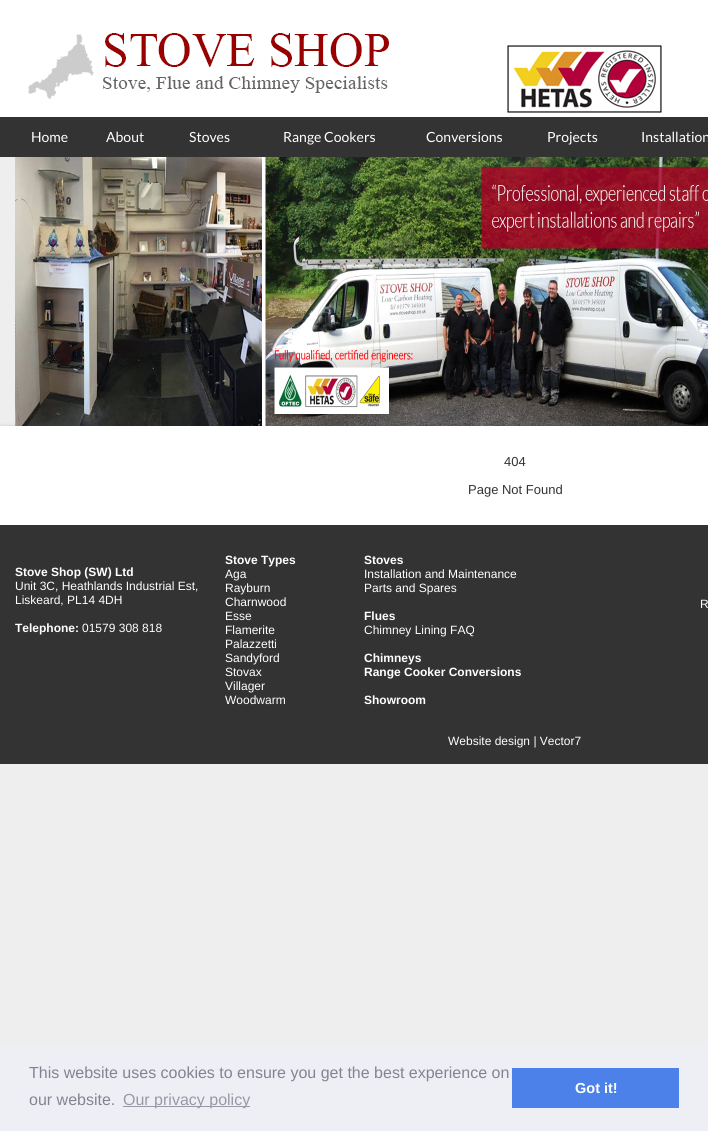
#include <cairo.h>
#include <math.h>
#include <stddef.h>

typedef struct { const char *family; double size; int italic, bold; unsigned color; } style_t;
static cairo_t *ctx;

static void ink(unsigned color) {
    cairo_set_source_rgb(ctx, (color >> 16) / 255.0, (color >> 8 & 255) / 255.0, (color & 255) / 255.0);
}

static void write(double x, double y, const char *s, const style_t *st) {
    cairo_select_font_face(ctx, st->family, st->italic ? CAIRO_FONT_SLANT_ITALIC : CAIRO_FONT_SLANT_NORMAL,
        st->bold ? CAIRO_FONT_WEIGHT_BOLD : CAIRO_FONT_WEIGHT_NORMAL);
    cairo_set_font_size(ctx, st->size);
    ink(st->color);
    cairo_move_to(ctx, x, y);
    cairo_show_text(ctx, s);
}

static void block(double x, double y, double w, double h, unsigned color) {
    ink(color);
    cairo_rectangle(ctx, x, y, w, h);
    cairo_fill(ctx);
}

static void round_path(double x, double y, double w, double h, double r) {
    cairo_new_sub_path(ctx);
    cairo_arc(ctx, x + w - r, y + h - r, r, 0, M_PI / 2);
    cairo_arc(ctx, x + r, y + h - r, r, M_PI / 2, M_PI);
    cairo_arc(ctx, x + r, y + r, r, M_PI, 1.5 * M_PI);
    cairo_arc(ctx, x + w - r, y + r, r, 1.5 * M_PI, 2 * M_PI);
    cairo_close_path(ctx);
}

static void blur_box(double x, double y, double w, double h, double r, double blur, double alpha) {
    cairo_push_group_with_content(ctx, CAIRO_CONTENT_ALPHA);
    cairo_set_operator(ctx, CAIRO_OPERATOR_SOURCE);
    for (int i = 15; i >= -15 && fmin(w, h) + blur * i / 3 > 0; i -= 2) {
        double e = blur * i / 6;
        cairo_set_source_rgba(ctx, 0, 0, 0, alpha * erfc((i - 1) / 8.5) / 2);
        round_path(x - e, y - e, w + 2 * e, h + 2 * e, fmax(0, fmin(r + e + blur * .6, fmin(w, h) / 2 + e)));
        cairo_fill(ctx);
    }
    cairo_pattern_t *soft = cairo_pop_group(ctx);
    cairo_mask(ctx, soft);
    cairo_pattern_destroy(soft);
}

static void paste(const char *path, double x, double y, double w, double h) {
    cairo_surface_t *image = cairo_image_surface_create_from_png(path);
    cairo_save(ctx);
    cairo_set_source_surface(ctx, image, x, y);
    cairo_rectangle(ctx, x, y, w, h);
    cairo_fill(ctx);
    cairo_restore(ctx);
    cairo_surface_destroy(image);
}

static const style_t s1 = {"Lato", 14, 0, 0, 0xffffff};
static const style_t s2 = {"Liberation Sans", 13, 0, 0, 0x333333};
static const style_t s3 = {"Liberation Sans", 12, 0, 1, 0xffffff};
static const style_t s4 = {"Liberation Sans", 12, 0, 0, 0xffffff};
static const style_t s5 = {"Liberation Sans", 16, 0, 0, 0x838391};
static const style_t s6 = {"Liberation Sans", 16, 0, 0, 0x9899a5};
static const style_t s7 = {"Liberation Sans", 14.5, 0, 1, 0xffffff};

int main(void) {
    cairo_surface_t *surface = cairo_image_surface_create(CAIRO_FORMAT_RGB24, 708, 1131);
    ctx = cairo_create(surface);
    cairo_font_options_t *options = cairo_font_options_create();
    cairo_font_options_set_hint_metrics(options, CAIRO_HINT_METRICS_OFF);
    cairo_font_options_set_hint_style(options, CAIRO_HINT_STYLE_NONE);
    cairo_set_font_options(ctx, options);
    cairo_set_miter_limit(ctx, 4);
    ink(0xeeeeee);
    cairo_paint(ctx);
    block(0, 0, 708, 117, 0xffffff);
    paste("pic1.png", 28, 32, 361, 67);
    paste("pic2.png", 507, 45, 155, 68);
    block(0, 117, 708, 40, 0x333333);
    write(31, 142, "Home", &s1);
    write(106, 142, "About", &s1);
    write(189, 142, "Stoves", &s1);
    write(283, 142, "Range Cookers", &s1);
    write(426, 142, "Conversions", &s1);
    write(547, 142, "Projects", &s1);
    write(641, 142, "Installation", &s1);
    ink(0xc7c7c7);
    blur_box(0, 426, 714, 99, 0, 2, 1);
    paste("pic3.png", 15, 157, 693, 269);
    block(0, 426, 708, 99, 0xffffff);
    write(504, 466, "404", &s2);
    write(468, 494, "Page Not Found", &s2);
    block(0, 525, 708, 239, 0x333333);
    write(15, 576, "Stove Shop (SW) Ltd", &s3);
    write(15, 590, "Unit 3C, Heathlands Industrial Est,", &s4);
    write(15, 604, "Liskeard, PL14 4DH", &s4);
    write(15, 632, "Telephone:", &s3);
    write(82, 632, "01579 308 818", &s4);
    write(225, 564, "Stove Types", &s3);
    write(225, 578, "Aga", &s4);
    write(225, 592, "Rayburn", &s4);
    write(225, 606, "Charnwood", &s4);
    write(225, 620, "Esse", &s4);
    write(225, 634, "Flamerite", &s4);
    write(225, 648, "Palazzetti", &s4);
    write(225, 662, "Sandyford", &s4);
    write(225, 676, "Stovax", &s4);
    write(225, 690, "Villager", &s4);
    write(225, 704, "Woodwarm", &s4);
    write(364, 564, "Stoves", &s3);
    write(364, 578, "Installation and Maintenance", &s4);
    write(364, 592, "Parts and Spares", &s4);
    write(364, 620, "Flues", &s3);
    write(364, 634, "Chimney Lining FAQ", &s4);
    write(364, 662, "Chimneys", &s3);
    write(364, 676, "Range Cooker Conversions", &s3);
    write(364, 704, "Showroom", &s3);
    write(700, 608, "R", &s4);
    write(448, 745, "Website design | Vector7", &s4);
    block(0, 1045, 708, 86, 0xedeff5);
    write(29, 1078, "This website uses cookies to ensure you get the best experience on", &s5);
    write(29, 1105, "our website.", &s5);
    block(123, 1106, 127, 1, 0x9899a5);
    write(123, 1105, "Our privacy policy", &s6);
    block(512, 1068, 167, 40, 0x4b81e8);
    write(575, 1093, "Got it!", &s7);
    cairo_surface_write_to_png(surface, "screenshot.png");
    cairo_font_options_destroy(options);
    cairo_destroy(ctx);
    cairo_surface_destroy(surface);
    return 0;
}
